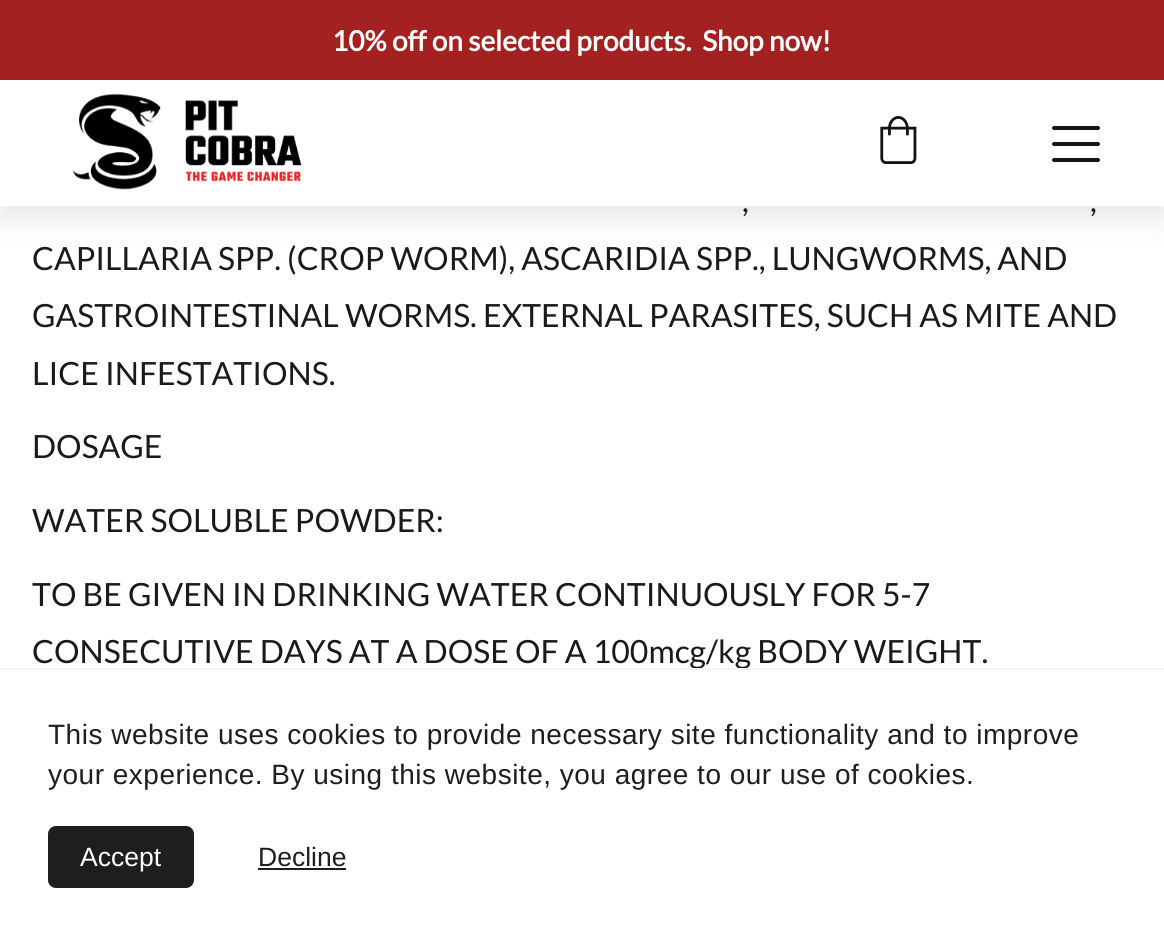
#include <cairo.h>
#include <math.h>
#include <stddef.h>

typedef struct { const char *family; double size; int italic, bold; unsigned color; } style_t;
static cairo_t *ctx;

static void ink(unsigned color) {
    cairo_set_source_rgb(ctx, (color >> 16) / 255.0, (color >> 8 & 255) / 255.0, (color & 255) / 255.0);
}

static void write(double x, double y, const char *s, const style_t *st) {
    cairo_select_font_face(ctx, st->family, st->italic ? CAIRO_FONT_SLANT_ITALIC : CAIRO_FONT_SLANT_NORMAL,
        st->bold ? CAIRO_FONT_WEIGHT_BOLD : CAIRO_FONT_WEIGHT_NORMAL);
    cairo_set_font_size(ctx, st->size);
    ink(st->color);
    cairo_move_to(ctx, x, y);
    cairo_show_text(ctx, s);
}

static void write_spaced(double x, double y, const char *s, double letter, double word) {
    cairo_move_to(ctx, x, y);
    while (*s) {
        char ch[5] = {0};
        int n = 0;
        do ch[n++] = *s++; while ((*s & 0xC0) == 0x80);
        cairo_show_text(ctx, ch);
        cairo_rel_move_to(ctx, letter + word * (*ch == ' '), 0);
    }
}

static void block(double x, double y, double w, double h, unsigned color) {
    ink(color);
    cairo_rectangle(ctx, x, y, w, h);
    cairo_fill(ctx);
}

static void round_path(double x, double y, double w, double h, double r) {
    cairo_new_sub_path(ctx);
    cairo_arc(ctx, x + w - r, y + h - r, r, 0, M_PI / 2);
    cairo_arc(ctx, x + r, y + h - r, r, M_PI / 2, M_PI);
    cairo_arc(ctx, x + r, y + r, r, M_PI, 1.5 * M_PI);
    cairo_arc(ctx, x + w - r, y + r, r, 1.5 * M_PI, 2 * M_PI);
    cairo_close_path(ctx);
}

static void blur_box(double x, double y, double w, double h, double r, double blur, double alpha) {
    cairo_push_group_with_content(ctx, CAIRO_CONTENT_ALPHA);
    cairo_set_operator(ctx, CAIRO_OPERATOR_SOURCE);
    for (int i = 15; i >= -15 && fmin(w, h) + blur * i / 3 > 0; i -= 2) {
        double e = blur * i / 6;
        cairo_set_source_rgba(ctx, 0, 0, 0, alpha * erfc((i - 1) / 8.5) / 2);
        round_path(x - e, y - e, w + 2 * e, h + 2 * e, fmax(0, fmin(r + e + blur * .6, fmin(w, h) / 2 + e)));
        cairo_fill(ctx);
    }
    cairo_pattern_t *soft = cairo_pop_group(ctx);
    cairo_mask(ctx, soft);
    cairo_pattern_destroy(soft);
}

static void paste(const char *path, double x, double y, double w, double h) {
    cairo_surface_t *image = cairo_image_surface_create_from_png(path);
    cairo_save(ctx);
    cairo_set_source_surface(ctx, image, x, y);
    cairo_rectangle(ctx, x, y, w, h);
    cairo_fill(ctx);
    cairo_restore(ctx);
    cairo_surface_destroy(image);
}

static const style_t s1 = {"Lato", 28, 0, 1, 0xffffff};
static const style_t s2 = {"Lato", 32, 0, 0, 0x1a1a1a};
static const style_t s3 = {"Liberation Sans", 26.5, 0, 0, 0xffffff};
static const style_t s4 = {"Liberation Sans", 26.5, 0, 0, 0x1d1e20};

int main(void) {
    cairo_surface_t *surface = cairo_image_surface_create(CAIRO_FORMAT_RGB24, 1164, 932);
    ctx = cairo_create(surface);
    cairo_font_options_t *options = cairo_font_options_create();
    cairo_font_options_set_hint_metrics(options, CAIRO_HINT_METRICS_OFF);
    cairo_font_options_set_hint_style(options, CAIRO_HINT_STYLE_NONE);
    cairo_set_font_options(ctx, options);
    cairo_set_miter_limit(ctx, 4);
    ink(0xffffff);
    cairo_paint(ctx);
    ink(0x000000);
    blur_box(0, 92, 1164, 126, 0, 14, 0.1);
    block(0, 0, 1164, 80, 0xa32121);
    write(332, 51, "10% off on selected products.  Shop now!", &s1);
    block(0, 80, 1164, 126, 0xffffff);
    paste("pic1.png", 73, 93, 229, 97);
    paste("pic2.png", 880, 116, 37, 48);
    ink(0x121315);
    round_path(1052, 126, 48, 4, 2);
    cairo_fill(ctx);
    round_path(1052, 142, 48, 4, 2);
    cairo_fill(ctx);
    round_path(1052, 158, 48, 4, 2);
    cairo_fill(ctx);
    write(742, 212, ",", &s2);
    write(1090, 212, ",", &s2);
    write(32, 270, "CAPILLARIA SPP. (CROP WORM), ASCARIDIA SPP., LUNGWORMS, AND", &s2);
    write(32, 327, "GASTROINTESTINAL WORMS. EXTERNAL PARASITES, SUCH AS MITE AND", &s2);
    write(32, 385, "LICE INFESTATIONS.", &s2);
    write(32, 458, "DOSAGE", &s2);
    write(32, 532, "WATER SOLUBLE POWDER:", &s2);
    write(32, 606, "TO BE GIVEN IN DRINKING WATER CONTINUOUSLY FOR 5-7", &s2);
    write(32, 663, "CONSECUTIVE DAYS AT A DOSE OF A 100mcg/kg BODY WEIGHT.", &s2);
    block(0, 668, 1164, 2, 0xf2f3f6);
    cairo_select_font_face(ctx, "Liberation Sans", CAIRO_FONT_SLANT_NORMAL, CAIRO_FONT_WEIGHT_NORMAL);
    cairo_set_font_size(ctx, 28);
    ink(0x1d1e20);
    write_spaced(48, 744, "This website uses cookies to provide necessary site functionality and to improve", 0.5, 0);
    write_spaced(48, 784, "your experience. By using this website, you agree to our use of cookies.", 0.5, 0);
    round_path(48, 826, 146, 62, 8);
    cairo_fill(ctx);
    write(80, 866, "Accept", &s3);
    write(258, 866, "Decline", &s4);
    block(258, 868, 88, 2, 0x1d1e20);
    cairo_surface_write_to_png(surface, "screenshot.png");
    cairo_font_options_destroy(options);
    cairo_destroy(ctx);
    cairo_surface_destroy(surface);
    return 0;
}
